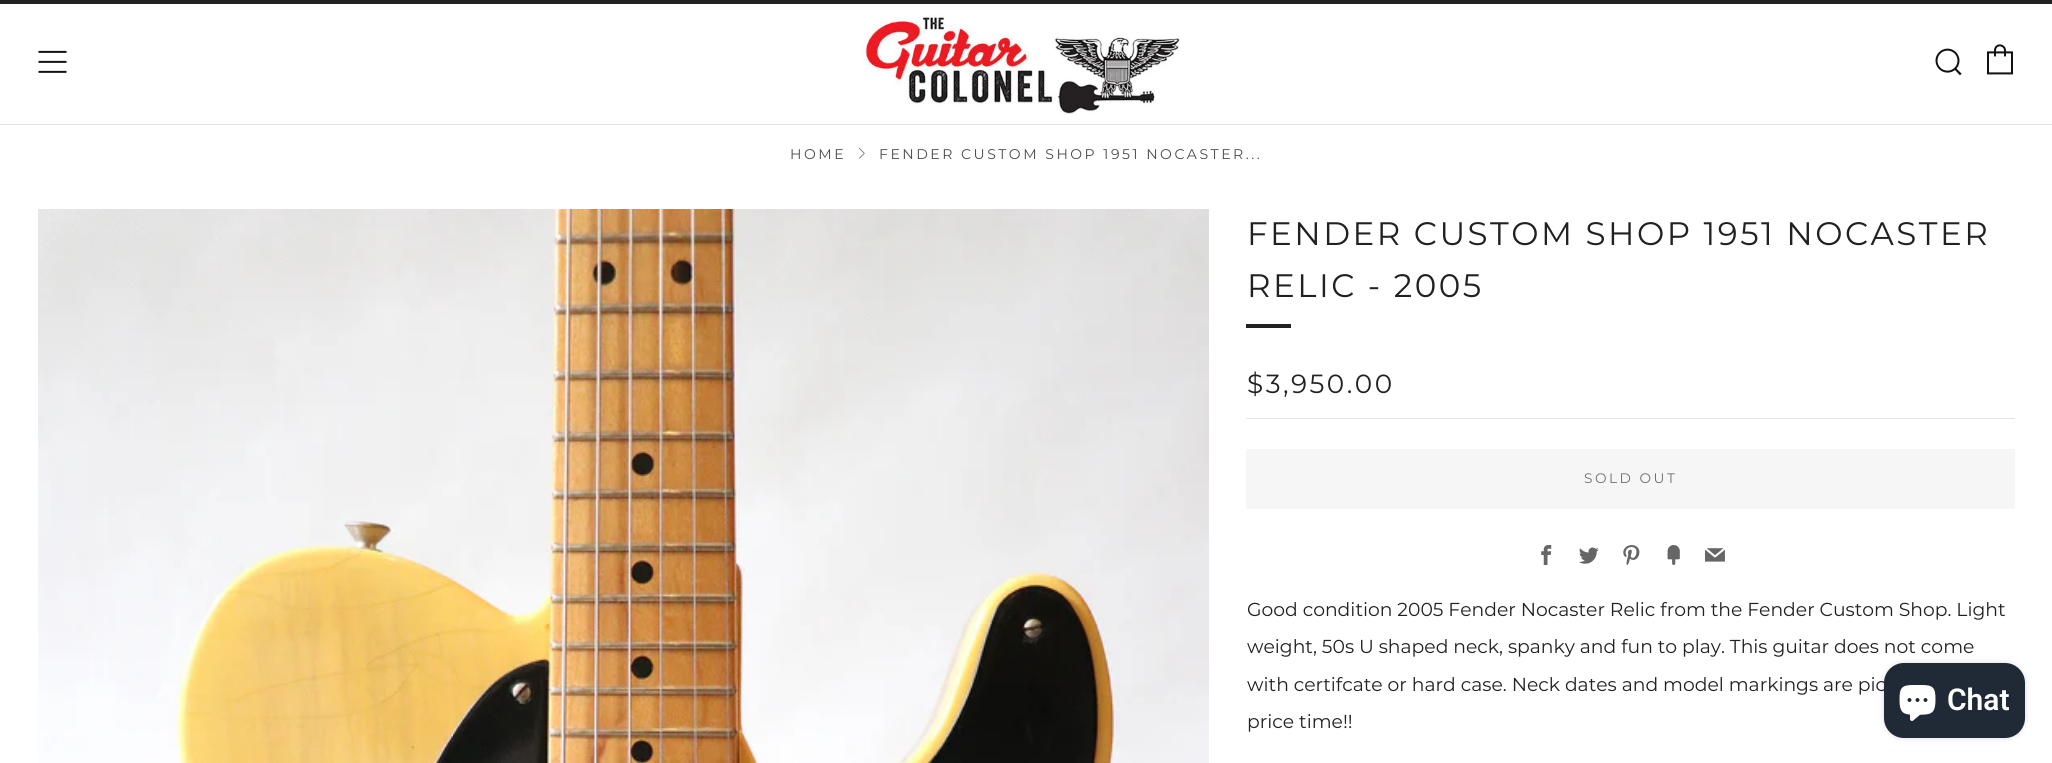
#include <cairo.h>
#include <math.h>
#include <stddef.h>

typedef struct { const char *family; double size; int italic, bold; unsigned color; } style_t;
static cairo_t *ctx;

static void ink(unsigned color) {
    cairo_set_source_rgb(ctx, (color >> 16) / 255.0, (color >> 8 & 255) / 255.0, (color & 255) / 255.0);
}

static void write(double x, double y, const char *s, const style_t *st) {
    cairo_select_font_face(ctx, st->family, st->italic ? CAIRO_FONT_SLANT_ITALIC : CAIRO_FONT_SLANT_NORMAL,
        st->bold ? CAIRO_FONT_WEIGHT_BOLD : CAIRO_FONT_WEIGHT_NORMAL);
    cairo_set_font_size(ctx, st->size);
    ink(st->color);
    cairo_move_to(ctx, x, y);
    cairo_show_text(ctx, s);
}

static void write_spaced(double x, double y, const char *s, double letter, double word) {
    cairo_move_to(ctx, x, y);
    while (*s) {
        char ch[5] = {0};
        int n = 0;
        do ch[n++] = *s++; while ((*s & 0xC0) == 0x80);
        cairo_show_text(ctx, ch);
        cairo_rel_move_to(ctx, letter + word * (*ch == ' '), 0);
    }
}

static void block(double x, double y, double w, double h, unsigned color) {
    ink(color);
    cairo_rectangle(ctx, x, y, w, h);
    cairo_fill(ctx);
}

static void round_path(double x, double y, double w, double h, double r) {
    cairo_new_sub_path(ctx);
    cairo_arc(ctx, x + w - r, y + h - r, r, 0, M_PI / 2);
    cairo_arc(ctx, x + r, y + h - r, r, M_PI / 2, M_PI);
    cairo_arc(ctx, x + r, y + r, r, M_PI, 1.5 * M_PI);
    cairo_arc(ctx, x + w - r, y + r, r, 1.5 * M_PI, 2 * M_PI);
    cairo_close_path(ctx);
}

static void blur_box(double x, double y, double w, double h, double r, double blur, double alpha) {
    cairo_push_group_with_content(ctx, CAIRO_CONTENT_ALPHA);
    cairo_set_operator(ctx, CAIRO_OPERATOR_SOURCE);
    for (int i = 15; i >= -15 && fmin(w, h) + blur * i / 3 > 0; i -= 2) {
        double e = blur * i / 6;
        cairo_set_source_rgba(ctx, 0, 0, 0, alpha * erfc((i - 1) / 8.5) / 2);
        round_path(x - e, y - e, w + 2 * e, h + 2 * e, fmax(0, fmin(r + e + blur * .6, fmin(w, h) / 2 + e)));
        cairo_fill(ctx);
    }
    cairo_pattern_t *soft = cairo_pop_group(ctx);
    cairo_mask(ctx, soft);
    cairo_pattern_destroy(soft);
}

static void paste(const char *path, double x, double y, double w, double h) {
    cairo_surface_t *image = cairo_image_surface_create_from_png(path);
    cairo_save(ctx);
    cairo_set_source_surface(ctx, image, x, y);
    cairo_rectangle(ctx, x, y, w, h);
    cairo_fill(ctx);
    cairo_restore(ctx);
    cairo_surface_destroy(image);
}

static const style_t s1 = {"Montserrat", 18.75, 0, 0, 0x212121};
static const style_t s2 = {"Roboto SemiBold", 30, 0, 0, 0xffffff};

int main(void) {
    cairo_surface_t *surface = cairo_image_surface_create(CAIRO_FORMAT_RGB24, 2052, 763);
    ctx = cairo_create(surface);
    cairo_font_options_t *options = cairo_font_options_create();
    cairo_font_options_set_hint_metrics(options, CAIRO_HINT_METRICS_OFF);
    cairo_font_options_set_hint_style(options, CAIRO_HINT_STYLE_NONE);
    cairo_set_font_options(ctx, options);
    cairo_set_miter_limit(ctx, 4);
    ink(0xffffff);
    cairo_paint(ctx);
    block(0, 124, 2052, 1, 0xe4e4e4);
    block(0, 0, 2052, 4, 0x212121);
    paste("pic1.png", 38, 50, 29, 23);
    paste("pic2.png", 862, 15, 318, 99);
    paste("pic3.png", 1935, 48, 27, 28);
    paste("pic4.png", 1987, 44, 26, 31);
    cairo_select_font_face(ctx, "Montserrat", CAIRO_FONT_SLANT_NORMAL, CAIRO_FONT_WEIGHT_NORMAL);
    cairo_set_font_size(ctx, 14.05);
    ink(0x4d4d4d);
    write_spaced(790, 159, "HOME", 2.5, 0);
    paste("pic5.png", 859, 148, 6, 11);
    write_spaced(879, 159, "FENDER CUSTOM SHOP 1951 NOCASTER...", 2.5, 0);
    paste("pic6.png", 38, 209, 1171, 554);
    cairo_set_font_size(ctx, 32.5);
    ink(0x212121);
    write_spaced(1247, 245, "FENDER CUSTOM SHOP 1951 NOCASTER", 2.5, 0);
    write_spaced(1247, 297, "RELIC - 2005", 2.5, 0);
    block(1246, 324, 45, 4, 0x212121);
    block(1246, 418, 769, 1, 0xe4e4e4);
    cairo_set_font_size(ctx, 26.25);
    ink(0x212121);
    write_spaced(1247, 393, "$3,950.00", 2.5, 0);
    block(1246, 449, 769, 60, 0xf6f6f6);
    cairo_set_font_size(ctx, 13.75);
    ink(0x707070);
    write_spaced(1584, 483, "SOLD OUT", 2.5, 0);
    paste("pic7.png", 1541, 545, 11, 20);
    paste("pic8.png", 1579, 547, 20, 17);
    paste("pic9.png", 1623, 545, 17, 20);
    paste("pic10.png", 1667, 545, 13, 20);
    paste("pic11.png", 1705, 548, 20, 14);
    write(1247, 616, "Good condition 2005 Fender Nocaster Relic from the Fender Custom Shop. Light", &s1);
    write(1247, 653, "weight, 50s U shaped neck, spanky and fun to play. This guitar does not come", &s1);
    write(1247, 691, "with certifcate or hard case. Neck dates and model markings are pic", &s1);
    write(1247, 728, "price time!!", &s1);
    ink(0x000000);
    blur_box(1884, 663, 141, 75, 20, 3, 0.15);
    ink(0x202a36);
    round_path(1884, 663, 141, 75, 20);
    cairo_fill(ctx);
    paste("pic12.png", 1899, 685, 37, 36);
    write(1947, 710, "Chat", &s2);
    cairo_surface_write_to_png(surface, "screenshot.png");
    cairo_font_options_destroy(options);
    cairo_destroy(ctx);
    cairo_surface_destroy(surface);
    return 0;
}
